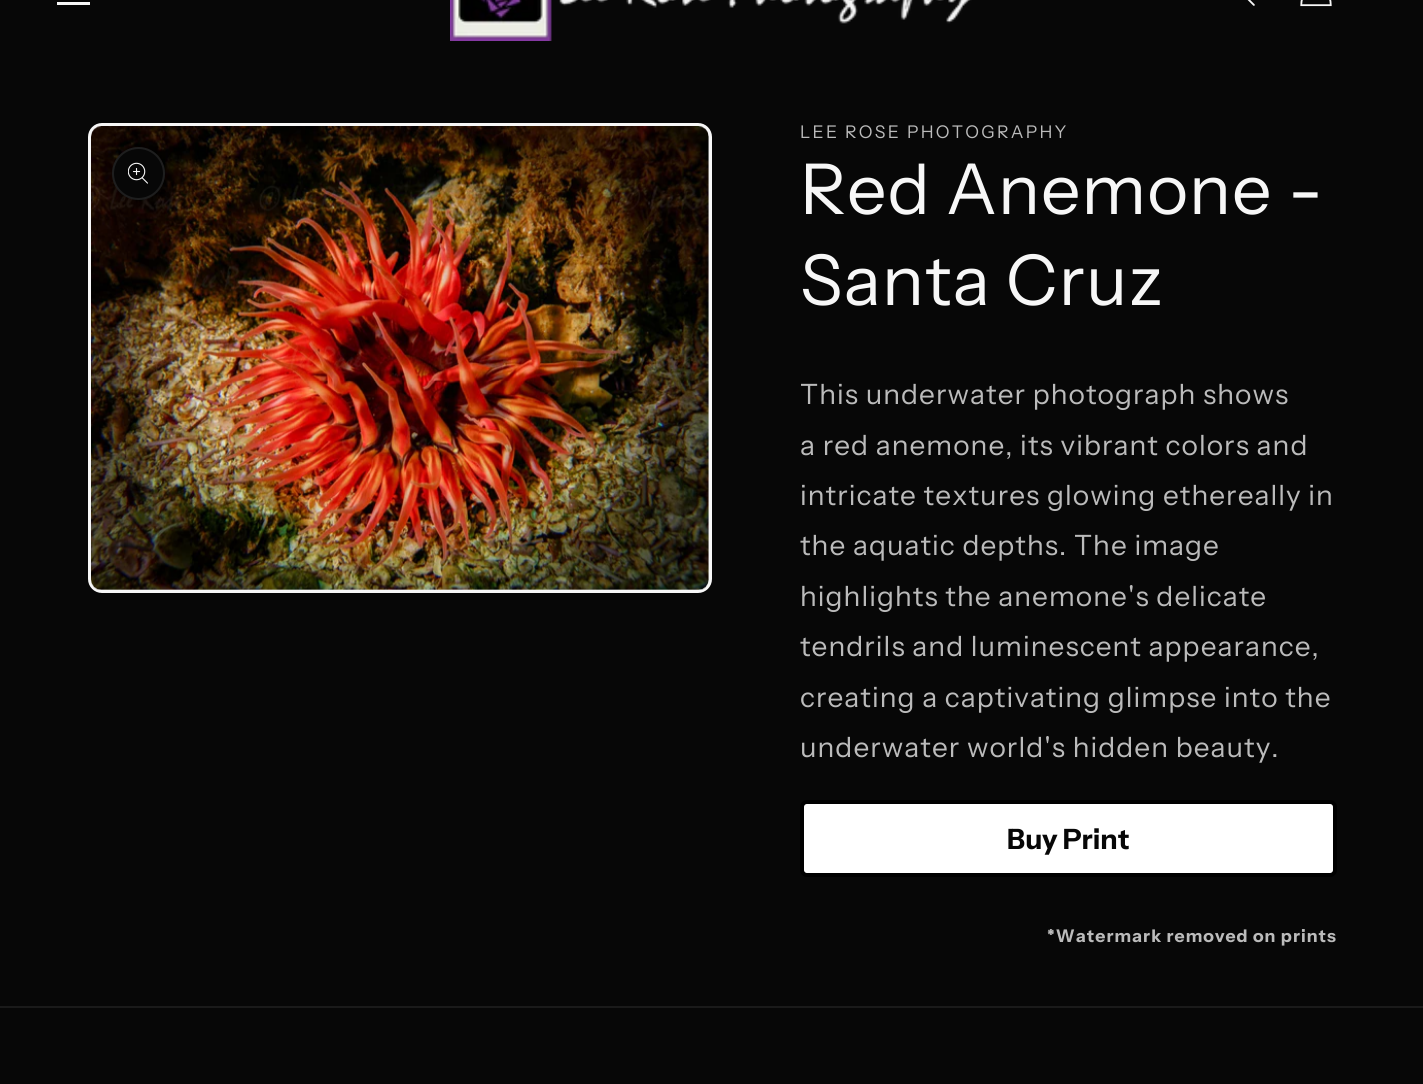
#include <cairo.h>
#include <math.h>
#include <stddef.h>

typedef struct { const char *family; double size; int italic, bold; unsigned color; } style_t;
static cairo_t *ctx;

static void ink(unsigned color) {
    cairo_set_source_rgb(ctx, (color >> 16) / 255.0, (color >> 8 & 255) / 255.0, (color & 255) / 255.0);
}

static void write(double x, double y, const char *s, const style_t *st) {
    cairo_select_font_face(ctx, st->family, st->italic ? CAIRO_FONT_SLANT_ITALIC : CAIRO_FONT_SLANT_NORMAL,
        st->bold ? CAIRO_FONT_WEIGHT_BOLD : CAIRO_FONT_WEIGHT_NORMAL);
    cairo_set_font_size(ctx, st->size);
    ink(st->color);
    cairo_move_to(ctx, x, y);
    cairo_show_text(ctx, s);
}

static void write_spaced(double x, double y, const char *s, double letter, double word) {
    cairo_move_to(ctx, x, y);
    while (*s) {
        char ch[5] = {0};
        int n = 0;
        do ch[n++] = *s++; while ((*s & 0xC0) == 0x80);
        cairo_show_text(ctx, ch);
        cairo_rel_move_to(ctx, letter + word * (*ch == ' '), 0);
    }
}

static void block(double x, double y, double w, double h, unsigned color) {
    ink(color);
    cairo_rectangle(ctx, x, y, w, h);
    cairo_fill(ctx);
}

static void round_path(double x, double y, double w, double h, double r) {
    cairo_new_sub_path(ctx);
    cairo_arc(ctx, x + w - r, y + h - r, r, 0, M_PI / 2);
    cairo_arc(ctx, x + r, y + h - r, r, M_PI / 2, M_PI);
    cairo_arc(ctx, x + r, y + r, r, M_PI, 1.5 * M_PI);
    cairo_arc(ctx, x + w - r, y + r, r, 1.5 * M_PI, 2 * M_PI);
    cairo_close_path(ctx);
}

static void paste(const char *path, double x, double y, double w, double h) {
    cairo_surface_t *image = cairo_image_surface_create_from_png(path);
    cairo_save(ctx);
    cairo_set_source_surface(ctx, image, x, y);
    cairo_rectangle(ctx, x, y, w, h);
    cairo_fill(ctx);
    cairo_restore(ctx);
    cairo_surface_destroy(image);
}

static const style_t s1 = {"Instrument Sans", 28, 0, 1, 0x070707};

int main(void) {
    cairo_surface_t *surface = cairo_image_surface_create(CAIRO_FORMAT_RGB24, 1423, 1084);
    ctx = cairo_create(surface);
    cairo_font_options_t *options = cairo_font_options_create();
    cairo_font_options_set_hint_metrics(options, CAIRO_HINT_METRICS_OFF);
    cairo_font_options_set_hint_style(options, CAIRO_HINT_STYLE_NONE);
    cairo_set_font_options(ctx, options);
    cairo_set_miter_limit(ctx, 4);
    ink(0x070707);
    cairo_paint(ctx);
    block(57, 2, 33, 3, 0xf7f7f7);
    paste("pic1.png", 450, 0, 522, 41);
    paste("pic2.png", 1247, 0, 8, 6);
    paste("pic3.png", 1300, 0, 32, 7);
    round_path(90, 125, 620, 466, 12);
    cairo_set_line_width(ctx, 4);
    cairo_stroke(ctx);
    paste("pic4.png", 91, 126, 618, 464);
    ink(0x070707);
    cairo_arc(ctx, 138.5, 173.5, 26.5, 0, 2 * M_PI);
    cairo_fill(ctx);
    cairo_arc(ctx, 138.5, 173.5, 25.5, 0, 2 * M_PI);
    cairo_set_source_rgba(ctx, 0.969, 0.969, 0.969, 0.1);
    cairo_set_line_width(ctx, 2);
    cairo_stroke(ctx);
    paste("pic5.png", 128, 162, 20, 22);
    cairo_select_font_face(ctx, "Instrument Sans", CAIRO_FONT_SLANT_NORMAL, CAIRO_FONT_WEIGHT_NORMAL);
    cairo_set_font_size(ctx, 17.5);
    ink(0xbbbbbb);
    write_spaced(800, 138, "LEE ROSE PHOTOGRAPHY", 2.25, 0);
    cairo_set_font_size(ctx, 70);
    ink(0xf7f7f7);
    write_spaced(800, 214, "Red Anemone -", 1.05, 0);
    write_spaced(800, 305, "Santa Cruz", 1.05, 0);
    cairo_set_font_size(ctx, 28);
    ink(0xbbbbbb);
    write_spaced(800, 404, "This underwater photograph shows", 1.05, 0);
    write_spaced(800, 455, "a red anemone, its vibrant colors and", 1.05, 0);
    write_spaced(800, 505, "intricate textures glowing ethereally in", 1.05, 0);
    write_spaced(800, 555, "the aquatic depths. The image", 1.05, 0);
    write_spaced(800, 606, "highlights the anemone's delicate", 1.05, 0);
    write_spaced(800, 656, "tendrils and luminescent appearance,", 1.05, 0);
    write_spaced(800, 707, "creating a captivating glimpse into the", 1.05, 0);
    write_spaced(800, 757, "underwater world's hidden beauty.", 1.05, 0);
    ink(0xffffff);
    round_path(802, 802, 533, 73, 5);
    cairo_fill_preserve(ctx);
    ink(0x000000);
    cairo_set_line_width(ctx, 4);
    cairo_stroke(ctx);
    write(1007, 849, "Buy Print", &s1);
    cairo_set_font_size(ctx, 17.5);
    ink(0xbbbbbb);
    write_spaced(1047, 942, "*Watermark removed on prints", 1.05, 0);
    block(0, 1006, 1423, 2, 0x1a1a1a);
    cairo_surface_write_to_png(surface, "screenshot.png");
    cairo_font_options_destroy(options);
    cairo_destroy(ctx);
    cairo_surface_destroy(surface);
    return 0;
}
